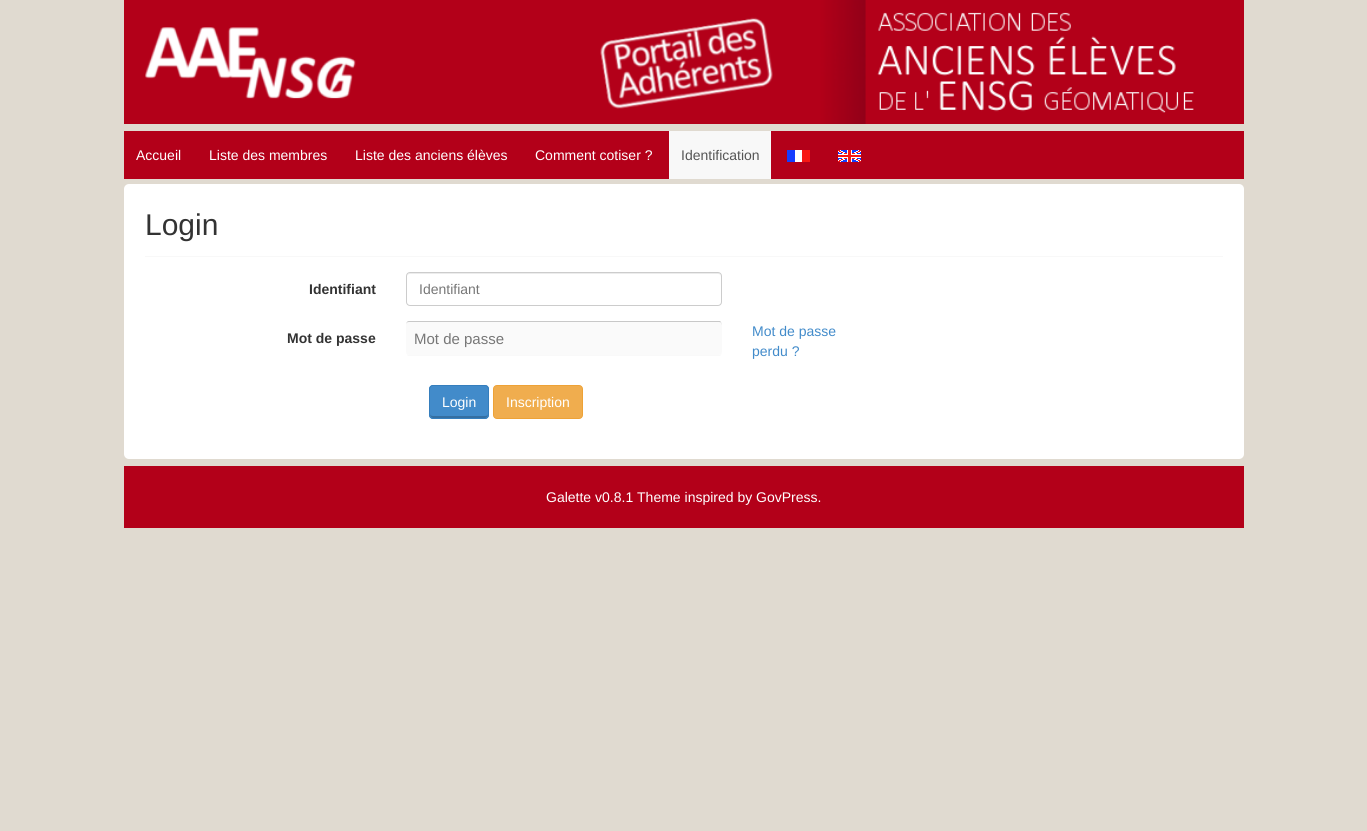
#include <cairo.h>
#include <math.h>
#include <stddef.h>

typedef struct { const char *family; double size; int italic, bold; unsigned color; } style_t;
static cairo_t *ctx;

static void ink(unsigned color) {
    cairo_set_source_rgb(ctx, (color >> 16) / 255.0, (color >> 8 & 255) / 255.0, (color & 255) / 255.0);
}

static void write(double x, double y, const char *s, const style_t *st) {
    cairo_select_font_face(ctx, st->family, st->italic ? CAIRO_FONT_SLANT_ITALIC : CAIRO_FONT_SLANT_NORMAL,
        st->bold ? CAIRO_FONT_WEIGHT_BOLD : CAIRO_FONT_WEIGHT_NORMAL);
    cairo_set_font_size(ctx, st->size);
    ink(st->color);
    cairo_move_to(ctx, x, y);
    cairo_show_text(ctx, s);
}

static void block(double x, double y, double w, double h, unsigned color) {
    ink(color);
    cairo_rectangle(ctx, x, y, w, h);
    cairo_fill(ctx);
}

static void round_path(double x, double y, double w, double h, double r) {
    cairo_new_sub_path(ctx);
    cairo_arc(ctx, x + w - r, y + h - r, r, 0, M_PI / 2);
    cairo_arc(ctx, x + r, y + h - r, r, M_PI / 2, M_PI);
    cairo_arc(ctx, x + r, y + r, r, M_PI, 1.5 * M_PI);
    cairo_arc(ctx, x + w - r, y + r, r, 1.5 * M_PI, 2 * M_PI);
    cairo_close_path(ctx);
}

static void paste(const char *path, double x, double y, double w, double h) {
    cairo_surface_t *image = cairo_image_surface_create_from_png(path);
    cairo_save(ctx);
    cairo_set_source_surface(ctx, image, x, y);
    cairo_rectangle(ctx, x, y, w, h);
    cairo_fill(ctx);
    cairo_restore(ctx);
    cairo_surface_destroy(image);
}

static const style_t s1 = {"Liberation Sans", 14, 0, 0, 0xffffff};
static const style_t s2 = {"Liberation Sans", 14, 0, 0, 0x555555};
static const style_t s3 = {"Liberation Sans", 30, 0, 0, 0x333333};
static const style_t s4 = {"Liberation Sans", 14, 0, 1, 0x333333};
static const style_t s5 = {"Liberation Sans", 14, 0, 0, 0x777777};
static const style_t s6 = {"Liberation Sans", 15, 0, 0, 0x777777};
static const style_t s7 = {"Liberation Sans", 14, 0, 0, 0x428bca};

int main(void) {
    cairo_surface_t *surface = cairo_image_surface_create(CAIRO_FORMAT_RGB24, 1367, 831);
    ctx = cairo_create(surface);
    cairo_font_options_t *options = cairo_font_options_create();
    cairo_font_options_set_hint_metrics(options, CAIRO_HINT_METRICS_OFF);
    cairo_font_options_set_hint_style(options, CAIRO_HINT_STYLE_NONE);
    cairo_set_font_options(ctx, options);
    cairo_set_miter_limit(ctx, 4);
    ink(0xe0dad0);
    cairo_paint(ctx);
    paste("pic1.png", 124, 0, 1120, 124);
    block(124, 131, 1120, 48, 0xb30019);
    write(136, 160, "Accueil", &s1);
    write(209, 160, "Liste des membres", &s1);
    write(355, 160, "Liste des anciens élèves", &s1);
    write(535, 160, "Comment cotiser ?", &s1);
    block(669, 131, 102, 48, 0xf8f8f8);
    write(681, 160, "Identification", &s2);
    paste("pic2.png", 787, 150, 23, 12);
    paste("pic3.png", 838, 150, 23, 12);
    ink(0xffffff);
    round_path(124, 184, 1120, 275, 5);
    cairo_fill(ctx);
    block(145, 256, 1078, 1, 0xf8f8f8);
    write(145, 235, "Login", &s3);
    write(309, 294, "Identifiant", &s4);
    ink(0xececec);
    cairo_new_path(ctx);
    cairo_move_to(ctx, 410, 274);
    cairo_line_to(ctx, 718, 274);
    cairo_curve_to(ctx, 720, 274, 721, 275, 721, 277);
    cairo_line_to(ctx, 720, 274);
    cairo_line_to(ctx, 719, 273);
    cairo_line_to(ctx, 410, 273);
    cairo_curve_to(ctx, 408, 273, 407, 275, 407, 277);
    cairo_curve_to(ctx, 407, 275, 408, 274, 410, 274);
    cairo_close_path(ctx);
    cairo_fill(ctx);
    round_path(406.5, 272.5, 315, 33, 3.5);
    ink(0xcccccc);
    cairo_set_line_width(ctx, 1);
    cairo_stroke(ctx);
    write(419, 294, "Identifiant", &s5);
    write(287, 343, "Mot de passe", &s4);
    ink(0xf9f9f9);
    cairo_new_path(ctx);
    cairo_move_to(ctx, 406, 352);
    cairo_line_to(ctx, 407, 355);
    cairo_line_to(ctx, 408, 356);
    cairo_line_to(ctx, 719, 356);
    cairo_curve_to(ctx, 721, 356, 722, 354, 722, 352);
    cairo_curve_to(ctx, 722, 354, 721, 355, 719, 355);
    cairo_line_to(ctx, 409, 355);
    cairo_curve_to(ctx, 407, 355, 406, 354, 406, 352);
    cairo_close_path(ctx);
    cairo_fill(ctx);
    ink(0xfafafa);
    round_path(406, 321, 316, 34, 3);
    cairo_fill(ctx);
    ink(0xc8c8c8);
    cairo_new_path(ctx);
    cairo_move_to(ctx, 409, 322);
    cairo_line_to(ctx, 719, 322);
    cairo_curve_to(ctx, 721, 322, 722, 323, 722, 325);
    cairo_line_to(ctx, 721, 322);
    cairo_line_to(ctx, 720, 321);
    cairo_line_to(ctx, 409, 321);
    cairo_curve_to(ctx, 407, 321, 406, 323, 406, 325);
    cairo_curve_to(ctx, 406, 323, 407, 322, 409, 322);
    cairo_close_path(ctx);
    cairo_fill(ctx);
    write(414, 344, "Mot de passe", &s6);
    write(752, 336, "Mot de passe", &s7);
    write(752, 356, "perdu ?", &s7);
    round_path(429, 385, 60, 34, 4);
    cairo_fill(ctx);
    ink(0x356fa2);
    cairo_new_path(ctx);
    cairo_move_to(ctx, 430, 413);
    cairo_curve_to(ctx, 430, 420, 435, 418, 442, 418);
    cairo_line_to(ctx, 476, 418);
    cairo_curve_to(ctx, 483, 418, 488, 420, 488, 413);
    cairo_curve_to(ctx, 488, 415, 487, 416, 485, 416);
    cairo_line_to(ctx, 433, 416);
    cairo_curve_to(ctx, 431, 416, 430, 415, 430, 413);
    cairo_close_path(ctx);
    cairo_fill(ctx);
    round_path(429.5, 385.5, 59, 33, 3.5);
    ink(0x357ebd);
    cairo_stroke(ctx);
    write(442, 407, "Login", &s1);
    ink(0xf0ad4e);
    round_path(493.5, 385.5, 89, 33, 3.5);
    cairo_fill_preserve(ctx);
    ink(0xeea236);
    cairo_stroke(ctx);
    write(506, 407, "Inscription", &s1);
    block(124, 466, 1120, 62, 0xb30019);
    write(546, 502, "Galette v0.8.1 Theme inspired by GovPress.", &s1);
    cairo_surface_write_to_png(surface, "screenshot.png");
    cairo_font_options_destroy(options);
    cairo_destroy(ctx);
    cairo_surface_destroy(surface);
    return 0;
}
